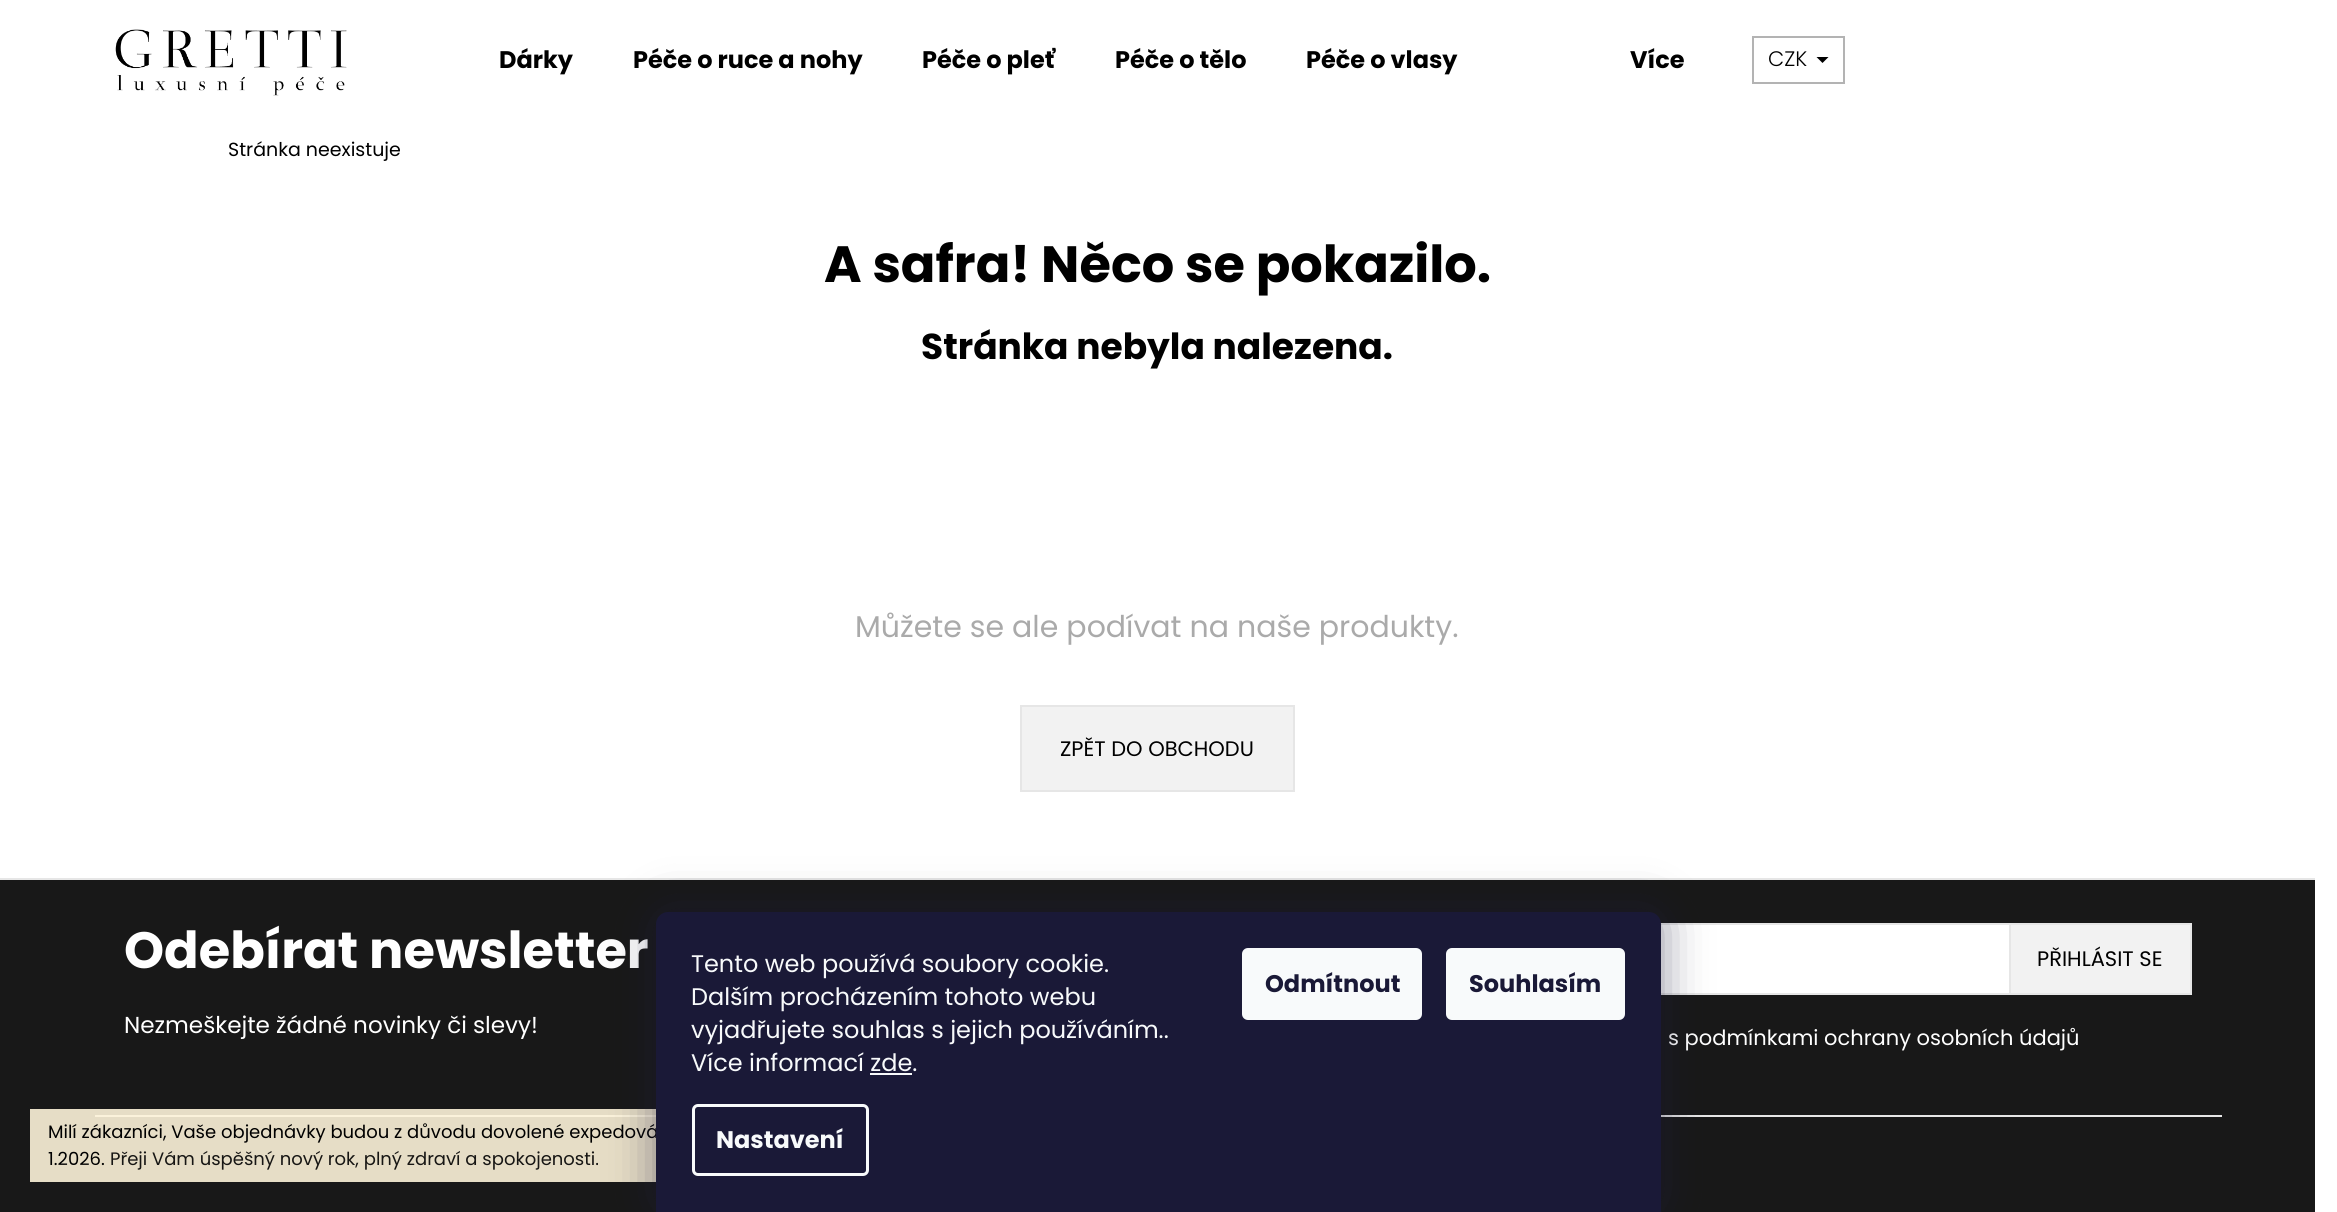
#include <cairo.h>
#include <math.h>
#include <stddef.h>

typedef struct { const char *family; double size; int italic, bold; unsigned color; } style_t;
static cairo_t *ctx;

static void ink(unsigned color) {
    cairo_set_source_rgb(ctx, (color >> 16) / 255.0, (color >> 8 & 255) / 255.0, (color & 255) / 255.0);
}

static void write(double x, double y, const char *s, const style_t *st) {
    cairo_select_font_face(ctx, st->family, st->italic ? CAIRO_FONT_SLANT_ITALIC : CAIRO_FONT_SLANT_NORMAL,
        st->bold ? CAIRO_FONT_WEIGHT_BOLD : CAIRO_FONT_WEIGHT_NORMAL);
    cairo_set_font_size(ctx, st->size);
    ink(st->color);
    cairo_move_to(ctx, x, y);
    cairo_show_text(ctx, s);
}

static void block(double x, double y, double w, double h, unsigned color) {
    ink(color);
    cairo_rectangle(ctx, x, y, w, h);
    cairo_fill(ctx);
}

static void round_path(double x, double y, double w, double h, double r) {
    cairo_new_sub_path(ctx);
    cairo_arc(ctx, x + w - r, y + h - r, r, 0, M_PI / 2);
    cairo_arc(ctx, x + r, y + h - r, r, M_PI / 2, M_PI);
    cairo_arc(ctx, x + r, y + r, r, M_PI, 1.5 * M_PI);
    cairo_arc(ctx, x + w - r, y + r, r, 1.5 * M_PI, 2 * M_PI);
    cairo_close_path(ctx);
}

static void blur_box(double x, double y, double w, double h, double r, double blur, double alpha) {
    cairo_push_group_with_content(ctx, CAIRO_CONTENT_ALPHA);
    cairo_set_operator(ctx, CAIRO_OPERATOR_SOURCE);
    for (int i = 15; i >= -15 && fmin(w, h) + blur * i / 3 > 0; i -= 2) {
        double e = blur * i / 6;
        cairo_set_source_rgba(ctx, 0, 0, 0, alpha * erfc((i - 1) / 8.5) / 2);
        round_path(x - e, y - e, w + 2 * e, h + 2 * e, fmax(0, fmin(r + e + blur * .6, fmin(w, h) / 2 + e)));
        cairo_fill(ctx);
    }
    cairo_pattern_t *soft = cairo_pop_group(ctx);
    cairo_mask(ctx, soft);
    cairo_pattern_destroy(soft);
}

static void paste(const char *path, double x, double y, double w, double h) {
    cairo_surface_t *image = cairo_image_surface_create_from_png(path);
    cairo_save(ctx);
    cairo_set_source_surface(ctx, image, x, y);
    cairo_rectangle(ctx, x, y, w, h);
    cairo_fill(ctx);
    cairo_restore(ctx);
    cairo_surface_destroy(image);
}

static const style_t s1 = {"Poppins", 24, 0, 1, 0x000000};
static const style_t s2 = {"Poppins Light", 21, 0, 0, 0x000000};
static const style_t s3 = {"Poppins", 19, 0, 0, 0x000000};
static const style_t s4 = {"Poppins", 51, 0, 1, 0x000000};
static const style_t s5 = {"Poppins", 36, 0, 1, 0x000000};
static const style_t s6 = {"Poppins", 30, 0, 0, 0xaaaaaa};
static const style_t s7 = {"Poppins", 21, 0, 0, 0x000000};
static const style_t s8 = {"Poppins", 51, 0, 1, 0xffffff};
static const style_t s9 = {"Poppins", 23.1, 0, 0, 0xffffff};
static const style_t s10 = {"Poppins", 21, 0, 0, 0xffffff};
static const style_t s11 = {"Poppins", 18, 0, 0, 0x000000};
static const style_t s12 = {"Poppins", 18, 0, 0, 0x171614};
static const style_t s13 = {"Poppins", 24, 0, 0, 0xf8fafb};
static const style_t s14 = {"Poppins", 24, 0, 1, 0xf8fafb};
static const style_t s15 = {"Poppins", 24, 0, 1, 0x1a1937};

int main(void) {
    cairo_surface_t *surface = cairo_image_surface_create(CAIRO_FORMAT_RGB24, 2337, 1212);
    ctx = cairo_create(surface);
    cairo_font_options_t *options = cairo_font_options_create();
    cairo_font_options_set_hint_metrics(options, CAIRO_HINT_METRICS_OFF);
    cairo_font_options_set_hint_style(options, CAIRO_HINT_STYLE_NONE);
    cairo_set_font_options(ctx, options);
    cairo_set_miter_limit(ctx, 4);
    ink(0xffffff);
    cairo_paint(ctx);
    paste("pic1.png", 115, 29, 232, 67);
    write(499, 68, "Dárky", &s1);
    write(633, 68, "Péče o ruce a nohy", &s1);
    write(922, 68, "Péče o pleť", &s1);
    write(1115, 68, "Péče o tělo", &s1);
    write(1306, 68, "Péče o vlasy", &s1);
    write(1630, 68, "Více", &s1);
    cairo_rectangle(ctx, 1753, 37, 91, 46);
    ink(0xb3b3b3);
    cairo_stroke(ctx);
    write(1768, 66, "CZK", &s2);
    cairo_new_path(ctx);
    cairo_move_to(ctx, 1816.5, 57);
    cairo_line_to(ctx, 1828.5, 57);
    cairo_line_to(ctx, 1822.5, 63);
    cairo_close_path(ctx);
    cairo_fill(ctx);
    write(228, 156, "Stránka neexistuje", &s3);
    write(824, 282, "A safra! Něco se pokazilo.", &s4);
    write(921, 359, "Stránka nebyla nalezena.", &s5);
    write(855, 637, "Můžete se ale podívat na naše produkty.", &s6);
    ink(0xf2f2f2);
    cairo_rectangle(ctx, 1021, 706, 273, 85);
    cairo_fill_preserve(ctx);
    ink(0xe6e6e6);
    cairo_stroke(ctx);
    write(1060, 756, "ZPĚT DO OBCHODU", &s7);
    block(0, 880, 2315, 332, 0x181818);
    block(0, 878, 2315, 2, 0xe6e6e6);
    block(95, 1115, 2127, 2, 0xe6e6e6);
    write(124, 968, "Odebírat newsletter", &s8);
    write(124, 1033, "Nezmeškejte žádné novinky či slevy!", &s9);
    block(1661, 925, 348, 68, 0xffffff);
    cairo_rectangle(ctx, 1365, 924, 826, 70);
    ink(0xe6e6e6);
    cairo_stroke(ctx);
    ink(0xf2f2f2);
    cairo_rectangle(ctx, 2010, 924, 181, 70);
    cairo_fill_preserve(ctx);
    ink(0xe6e6e6);
    cairo_stroke(ctx);
    write(2037, 966, "PŘIHLÁSIT SE", &s7);
    write(1668, 1045, "s podmínkami ochrany osobních údajů", &s10);
    cairo_set_source_rgba(ctx, 0.992, 0.953, 0.855, 0.9);
    cairo_rectangle(ctx, 30, 1109, 626, 73);
    cairo_fill(ctx);
    write(48, 1138, "Milí zákazníci, Vaše objednávky budou z důvodu dovolené expedová", &s11);
    write(48, 1165, "1.2026.", &s11);
    write(110, 1165, "Přeji Vám úspěšný nový rok, plný zdraví a spokojenosti.", &s12);
    ink(0x1b1939);
    blur_box(656, 912, 1005, 300, 12, 22.5, 0.5);
    ink(0x1a1937);
    cairo_new_path(ctx);
    cairo_move_to(ctx, 668, 912);
    cairo_line_to(ctx, 1649, 912);
    cairo_curve_to(ctx, 1655.5, 912, 1661, 917.5, 1661, 924);
    cairo_line_to(ctx, 1661, 1212);
    cairo_line_to(ctx, 656, 1212);
    cairo_line_to(ctx, 656, 924);
    cairo_curve_to(ctx, 656, 917.5, 661.5, 912, 668, 912);
    cairo_close_path(ctx);
    cairo_fill(ctx);
    write(691, 972, "Tento web používá soubory cookie.", &s13);
    write(691, 1005, "Dalším procházením tohoto webu", &s13);
    write(691, 1038, "vyjadřujete souhlas s jejich používáním..", &s13);
    write(691, 1071, "Více informací zde.", &s13);
    block(870, 1073, 42, 2, 0xf8fafb);
    round_path(693.5, 1105.5, 174, 69, 4.5);
    cairo_set_line_width(ctx, 3);
    cairo_stroke(ctx);
    write(716, 1148, "Nastavení", &s14);
    round_path(1242, 948, 180, 72, 6);
    cairo_fill(ctx);
    write(1265, 992, "Odmítnout", &s15);
    ink(0xf8fafb);
    round_path(1446, 948, 179, 72, 6);
    cairo_fill(ctx);
    write(1469, 992, "Souhlasím", &s15);
    cairo_surface_write_to_png(surface, "screenshot.png");
    cairo_font_options_destroy(options);
    cairo_destroy(ctx);
    cairo_surface_destroy(surface);
    return 0;
}
